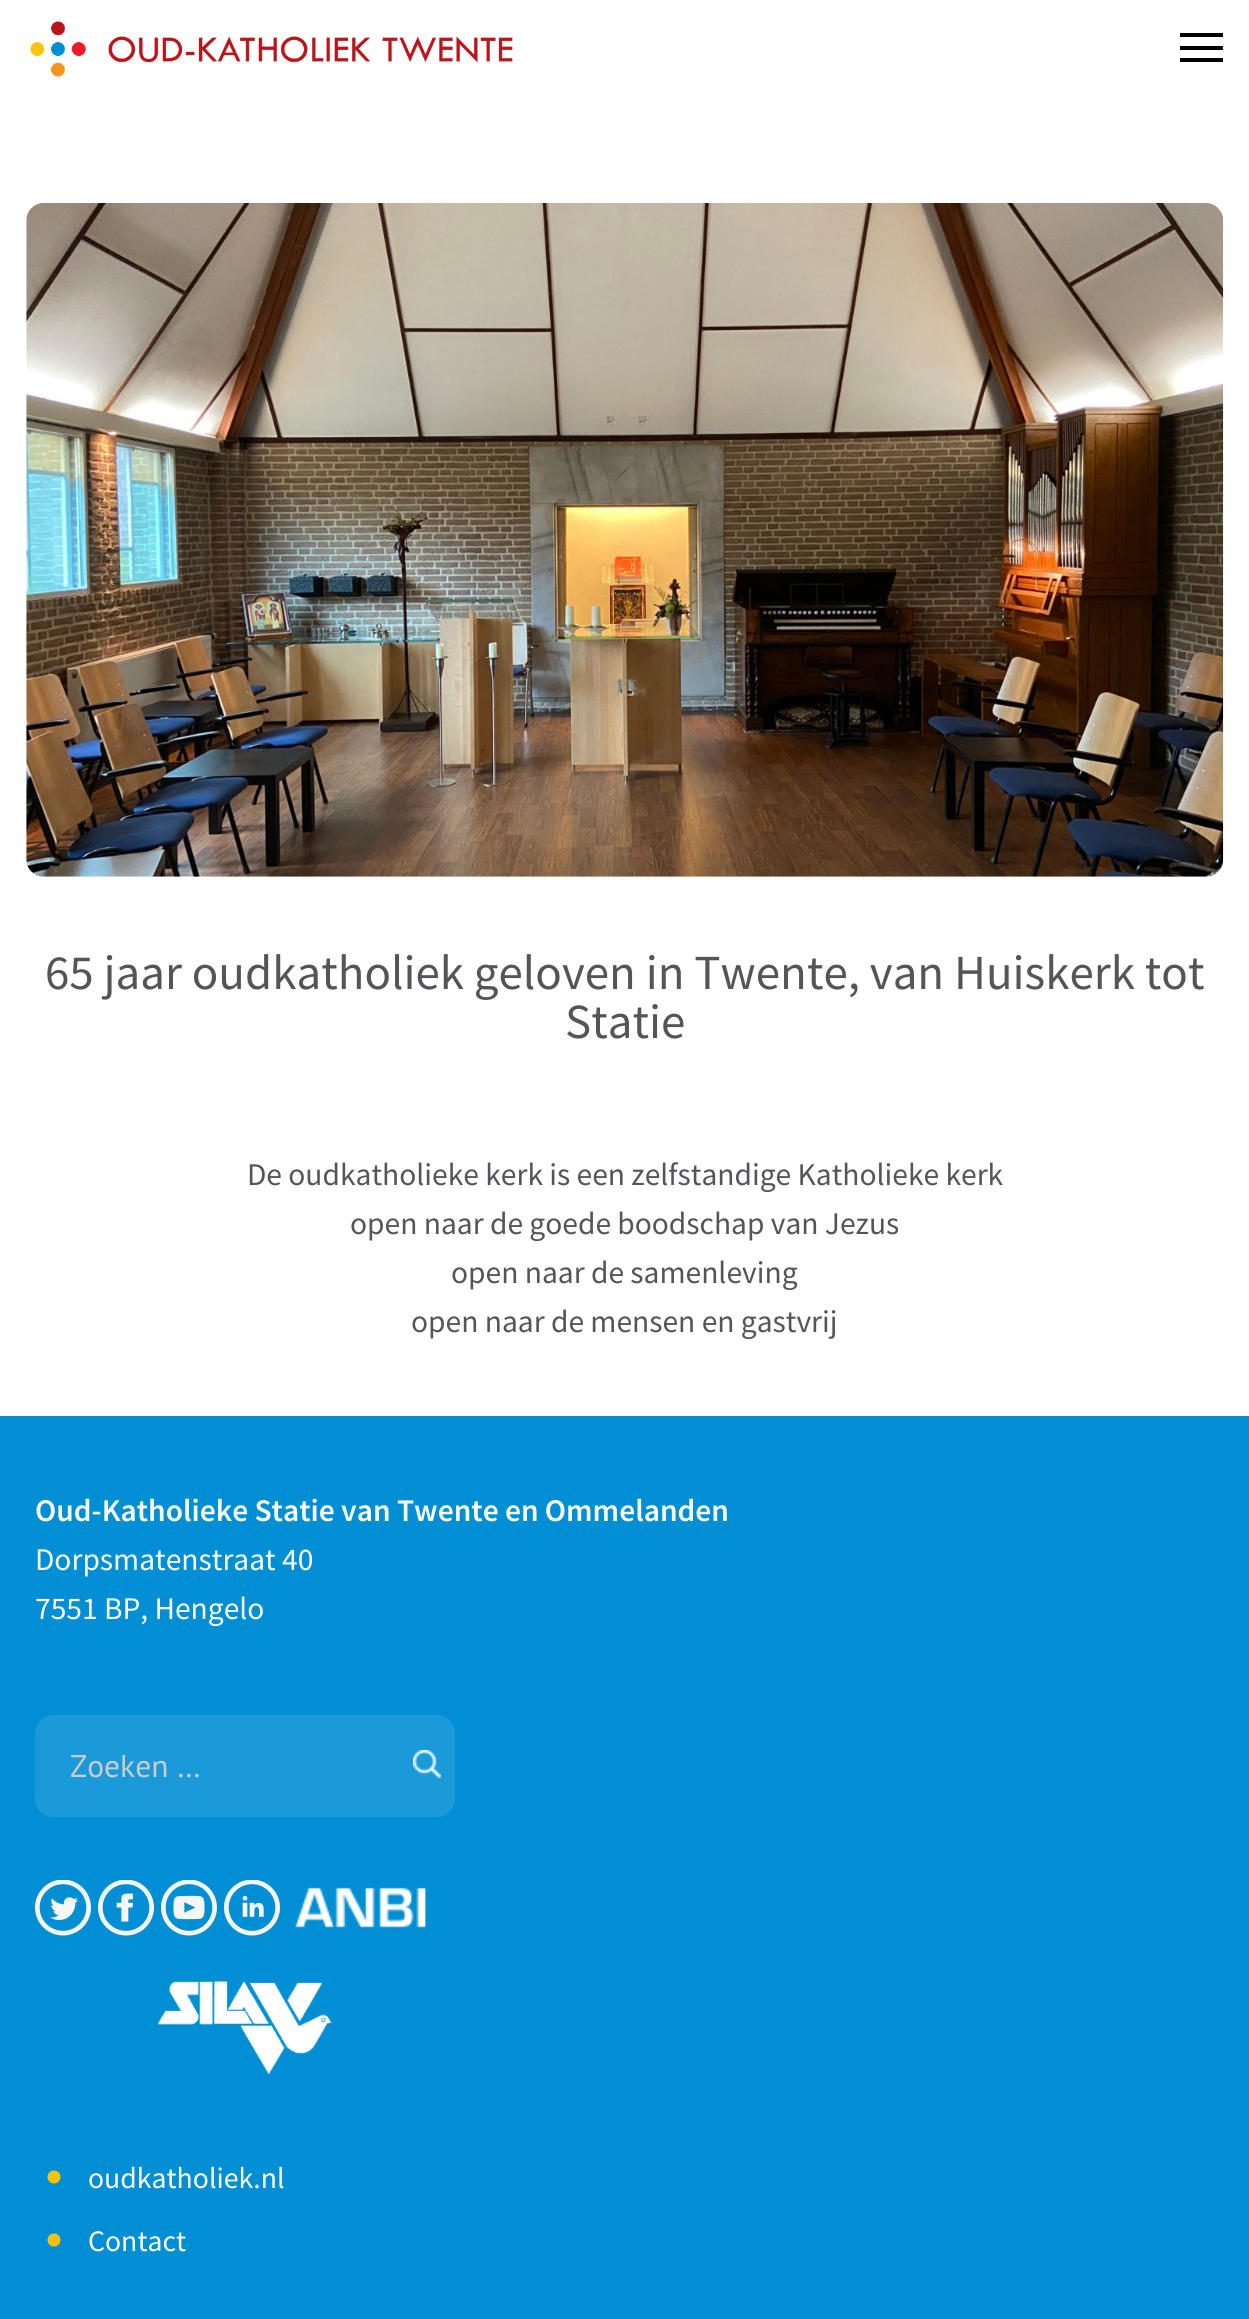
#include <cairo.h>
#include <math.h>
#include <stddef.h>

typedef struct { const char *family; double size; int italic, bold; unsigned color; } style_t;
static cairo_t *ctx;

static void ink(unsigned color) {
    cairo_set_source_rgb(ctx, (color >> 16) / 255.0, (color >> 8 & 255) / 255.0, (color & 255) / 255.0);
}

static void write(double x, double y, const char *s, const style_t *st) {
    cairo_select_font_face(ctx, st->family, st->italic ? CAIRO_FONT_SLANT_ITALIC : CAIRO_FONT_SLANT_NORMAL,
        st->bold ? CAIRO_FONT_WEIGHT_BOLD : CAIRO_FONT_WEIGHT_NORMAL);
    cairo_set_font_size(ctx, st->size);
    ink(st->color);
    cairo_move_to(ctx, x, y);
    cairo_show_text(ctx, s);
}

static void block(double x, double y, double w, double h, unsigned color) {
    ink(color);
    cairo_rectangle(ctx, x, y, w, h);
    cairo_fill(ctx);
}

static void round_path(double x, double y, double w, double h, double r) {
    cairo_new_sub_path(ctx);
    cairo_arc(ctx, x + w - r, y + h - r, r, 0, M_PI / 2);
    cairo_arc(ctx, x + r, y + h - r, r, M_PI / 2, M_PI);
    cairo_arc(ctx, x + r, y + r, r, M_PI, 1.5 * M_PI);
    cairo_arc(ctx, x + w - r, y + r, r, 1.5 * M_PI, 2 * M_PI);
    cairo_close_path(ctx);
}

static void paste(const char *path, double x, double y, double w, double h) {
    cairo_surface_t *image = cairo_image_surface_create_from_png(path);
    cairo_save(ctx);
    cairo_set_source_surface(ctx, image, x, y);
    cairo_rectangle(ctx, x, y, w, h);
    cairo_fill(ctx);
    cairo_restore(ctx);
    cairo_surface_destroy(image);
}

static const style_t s1 = {"Source Sans Pro", 49, 0, 0, 0x555458};
static const style_t s2 = {"Source Sans Pro", 31.5, 0, 0, 0x555458};
static const style_t s3 = {"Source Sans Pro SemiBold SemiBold", 31.5, 0, 0, 0xffffff};
static const style_t s4 = {"Source Sans Pro", 31.5, 0, 0, 0xffffff};
static const style_t s5 = {"PT Sans", 31.5, 0, 0, 0xcccccc};
static const style_t s6 = {"Source Sans Pro", 29.75, 0, 0, 0xffffff};

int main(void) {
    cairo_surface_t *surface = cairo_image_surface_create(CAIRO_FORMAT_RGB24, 1249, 2319);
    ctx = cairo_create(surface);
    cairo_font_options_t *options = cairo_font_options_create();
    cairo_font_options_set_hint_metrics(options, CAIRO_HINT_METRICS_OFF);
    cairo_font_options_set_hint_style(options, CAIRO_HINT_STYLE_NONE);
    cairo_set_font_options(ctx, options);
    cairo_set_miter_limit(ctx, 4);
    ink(0xffffff);
    cairo_paint(ctx);
    paste("pic1.png", 30, 21, 483, 56);
    block(1180, 33, 43, 4, 0x000000);
    block(1180, 46, 43, 4, 0x000000);
    block(1180, 58, 43, 4, 0x000000);
    paste("pic2.png", 26, 203, 1198, 674);
    write(45, 989, "65 jaar oudkatholiek geloven in Twente, van Huiskerk tot", &s1);
    write(565, 1038, "Statie", &s1);
    write(247, 1185, "De oudkatholieke kerk is een zelfstandige Katholieke kerk", &s2);
    write(350, 1234, "open naar de goede boodschap van Jezus", &s2);
    write(451, 1283, "open naar de samenleving", &s2);
    write(411, 1332, "open naar de mensen en gastvrij", &s2);
    block(0, 1416, 1249, 903, 0x008fd5);
    write(35, 1521, "Oud-Katholieke Statie van Twente en Ommelanden", &s3);
    write(35, 1570, "Dorpsmatenstraat 40", &s4);
    write(35, 1619, "7551 BP, Hengelo", &s4);
    ink(0x1a9ad9);
    round_path(35, 1715, 420, 102, 18);
    cairo_fill(ctx);
    write(70, 1777, "Zoeken …", &s5);
    paste("pic3.png", 413, 1750, 28, 28);
    paste("pic4.png", 35, 1880, 56, 56);
    paste("pic5.png", 98, 1880, 56, 56);
    paste("pic6.png", 161, 1880, 56, 56);
    paste("pic7.png", 224, 1880, 56, 56);
    paste("pic8.png", 295, 1887, 131, 41);
    paste("pic9.png", 157, 1981, 176, 94);
    ink(0xfec20d);
    cairo_arc(ctx, 54, 2177, 6.5, 0, 2 * M_PI);
    cairo_fill(ctx);
    write(88, 2188, "oudkatholiek.nl", &s6);
    ink(0xfec20d);
    cairo_new_path(ctx);
    cairo_arc(ctx, 54, 2240, 6.5, 0, 2 * M_PI);
    cairo_fill(ctx);
    write(88, 2251, "Contact", &s6);
    cairo_surface_write_to_png(surface, "screenshot.png");
    cairo_font_options_destroy(options);
    cairo_destroy(ctx);
    cairo_surface_destroy(surface);
    return 0;
}
